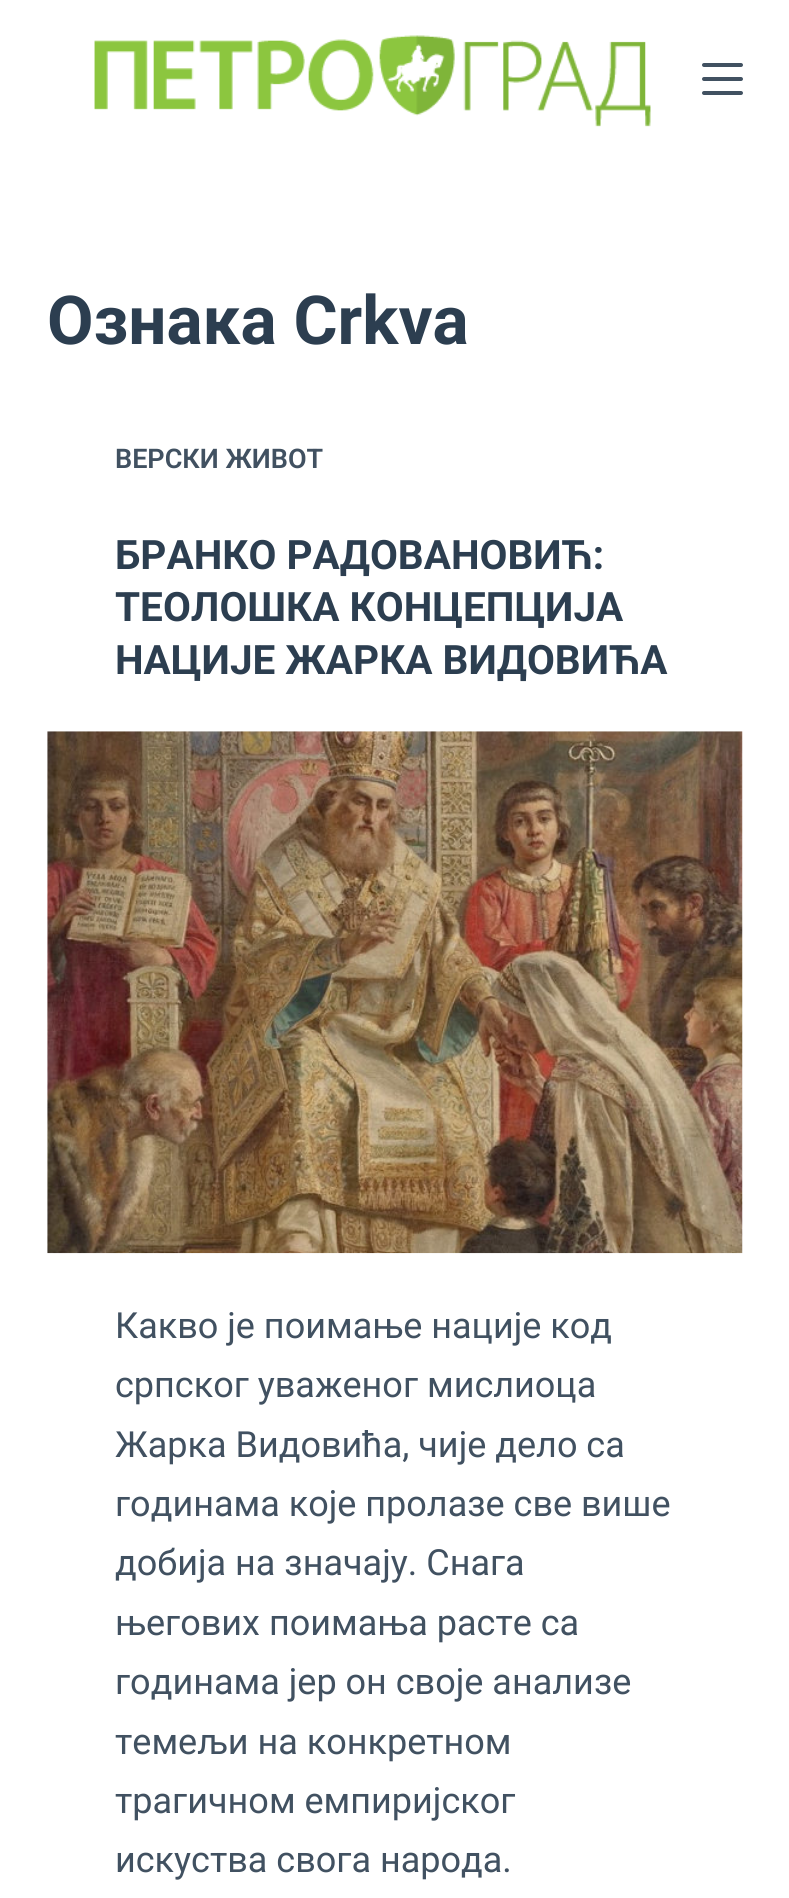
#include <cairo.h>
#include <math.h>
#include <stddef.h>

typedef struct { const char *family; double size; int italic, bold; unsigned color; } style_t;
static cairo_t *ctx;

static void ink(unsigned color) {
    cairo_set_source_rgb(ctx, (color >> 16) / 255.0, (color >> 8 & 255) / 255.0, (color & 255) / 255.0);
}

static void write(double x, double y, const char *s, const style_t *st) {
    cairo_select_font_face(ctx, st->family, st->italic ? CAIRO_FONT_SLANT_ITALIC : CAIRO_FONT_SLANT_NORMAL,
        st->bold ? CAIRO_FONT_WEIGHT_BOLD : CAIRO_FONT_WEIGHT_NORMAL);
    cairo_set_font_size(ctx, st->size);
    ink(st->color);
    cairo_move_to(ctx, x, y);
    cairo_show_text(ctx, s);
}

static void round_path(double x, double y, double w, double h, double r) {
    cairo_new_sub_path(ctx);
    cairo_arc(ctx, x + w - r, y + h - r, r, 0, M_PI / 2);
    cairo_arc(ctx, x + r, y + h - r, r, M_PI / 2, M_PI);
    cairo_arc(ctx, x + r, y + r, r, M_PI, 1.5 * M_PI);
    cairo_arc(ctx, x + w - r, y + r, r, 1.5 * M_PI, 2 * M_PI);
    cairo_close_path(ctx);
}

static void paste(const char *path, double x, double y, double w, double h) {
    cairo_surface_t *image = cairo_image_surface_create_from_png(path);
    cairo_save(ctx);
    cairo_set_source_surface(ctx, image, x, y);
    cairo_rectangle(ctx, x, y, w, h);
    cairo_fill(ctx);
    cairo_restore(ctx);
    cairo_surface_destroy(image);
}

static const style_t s1 = {"Roboto", 67.5, 0, 1, 0x2c3e50};
static const style_t s2 = {"Roboto SemiBold", 27, 0, 0, 0x415161};
static const style_t s3 = {"Roboto", 40.5, 0, 1, 0x2c3e50};
static const style_t s4 = {"Roboto", 36, 0, 0, 0x415161};

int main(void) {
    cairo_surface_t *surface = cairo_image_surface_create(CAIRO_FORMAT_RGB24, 789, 1898);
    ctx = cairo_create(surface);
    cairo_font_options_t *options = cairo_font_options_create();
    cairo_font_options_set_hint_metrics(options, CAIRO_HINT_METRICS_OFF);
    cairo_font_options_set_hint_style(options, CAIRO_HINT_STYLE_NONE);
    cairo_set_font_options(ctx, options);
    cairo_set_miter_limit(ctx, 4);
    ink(0xffffff);
    cairo_paint(ctx);
    paste("pic1.png", 94, 35, 557, 92);
    ink(0x415161);
    round_path(702, 63, 41, 4, 2);
    cairo_fill(ctx);
    round_path(702, 77, 41, 4, 2);
    cairo_fill(ctx);
    round_path(702, 91, 41, 4, 2);
    cairo_fill(ctx);
    write(47, 344, "Ознака Crkva", &s1);
    write(115, 468, "ВЕРСКИ ЖИВОТ", &s2);
    write(115, 569, "БРАНКО РАДОВАНОВИЋ:", &s3);
    write(115, 621, "ТЕОЛОШКА КОНЦЕПЦИЈА", &s3);
    write(115, 674, "НАЦИЈЕ ЖАРКА ВИДОВИЋА", &s3);
    paste("pic2.png", 47, 731, 696, 523);
    write(115, 1338, "Какво је поимање нације код", &s4);
    write(115, 1397, "српског уваженог мислиоца", &s4);
    write(115, 1457, "Жарка Видовића, чије дело са", &s4);
    write(115, 1516, "годинама које пролазе све више", &s4);
    write(115, 1575, "добија на значају. Снага", &s4);
    write(115, 1635, "његових поимања расте са", &s4);
    write(115, 1694, "годинама јер он своје анализе", &s4);
    write(115, 1754, "темељи на конкретном", &s4);
    write(115, 1813, "трагичном емпиријског", &s4);
    write(115, 1872, "искуства свога народа.", &s4);
    cairo_surface_write_to_png(surface, "screenshot.png");
    cairo_font_options_destroy(options);
    cairo_destroy(ctx);
    cairo_surface_destroy(surface);
    return 0;
}
